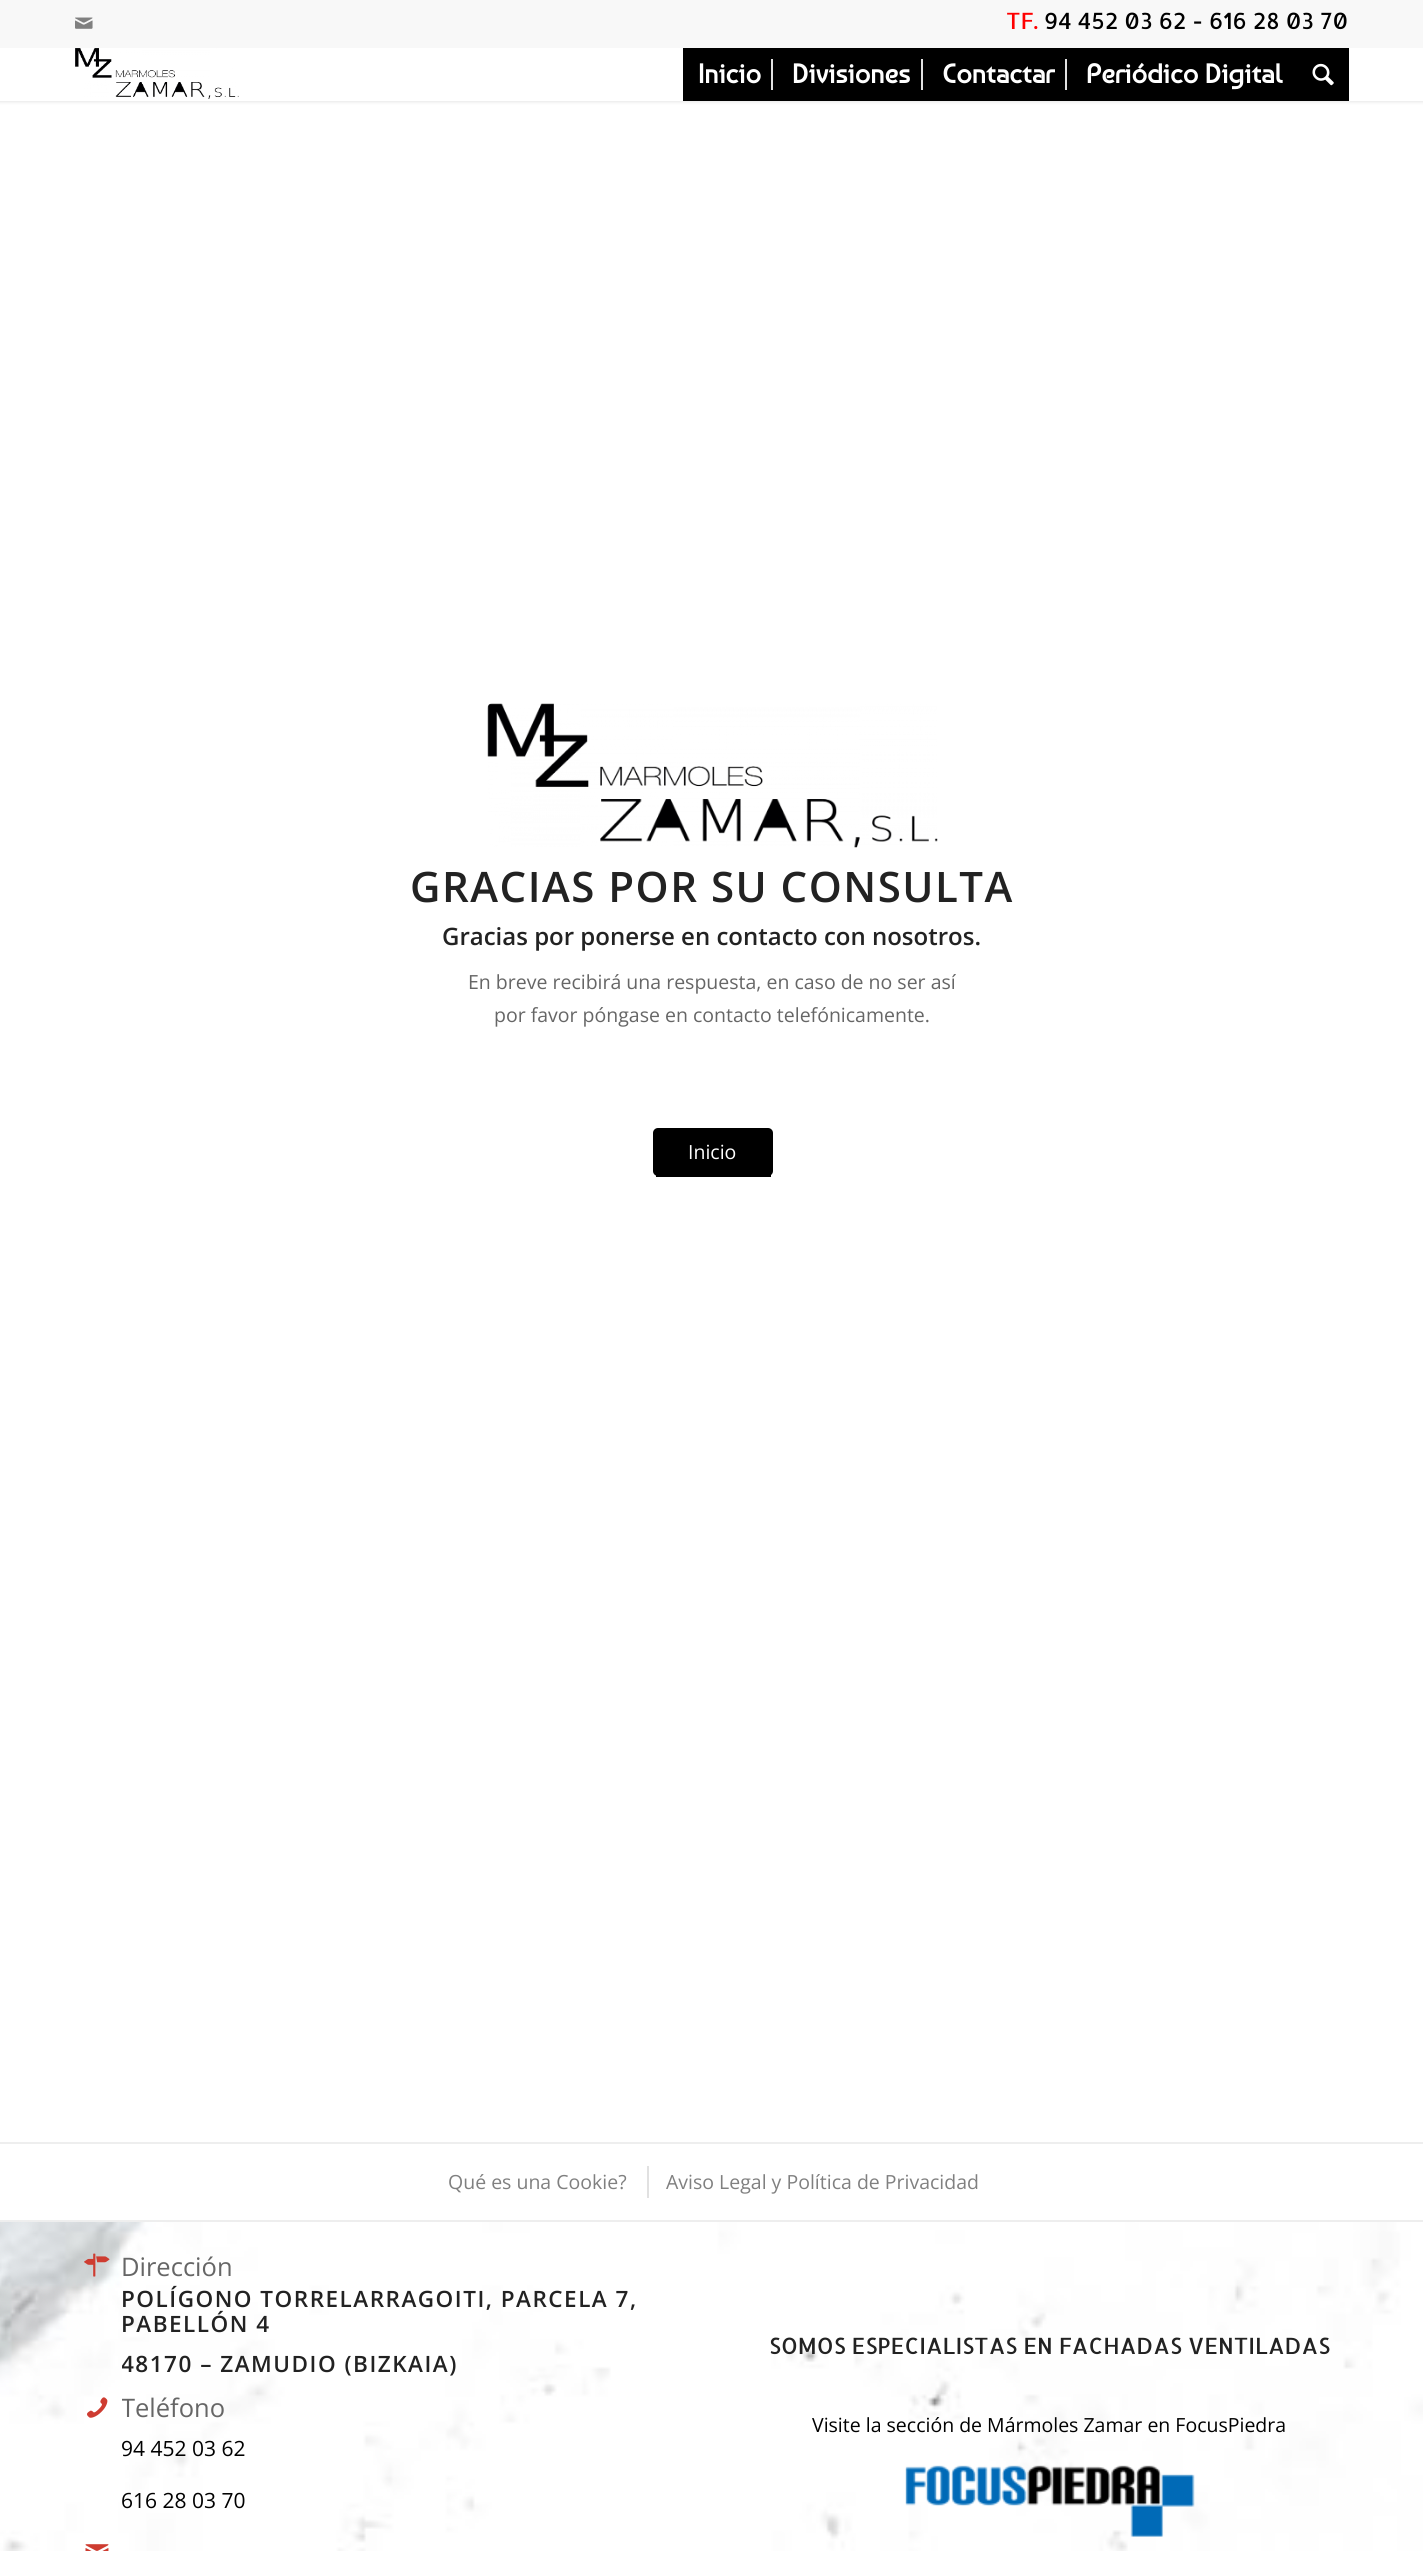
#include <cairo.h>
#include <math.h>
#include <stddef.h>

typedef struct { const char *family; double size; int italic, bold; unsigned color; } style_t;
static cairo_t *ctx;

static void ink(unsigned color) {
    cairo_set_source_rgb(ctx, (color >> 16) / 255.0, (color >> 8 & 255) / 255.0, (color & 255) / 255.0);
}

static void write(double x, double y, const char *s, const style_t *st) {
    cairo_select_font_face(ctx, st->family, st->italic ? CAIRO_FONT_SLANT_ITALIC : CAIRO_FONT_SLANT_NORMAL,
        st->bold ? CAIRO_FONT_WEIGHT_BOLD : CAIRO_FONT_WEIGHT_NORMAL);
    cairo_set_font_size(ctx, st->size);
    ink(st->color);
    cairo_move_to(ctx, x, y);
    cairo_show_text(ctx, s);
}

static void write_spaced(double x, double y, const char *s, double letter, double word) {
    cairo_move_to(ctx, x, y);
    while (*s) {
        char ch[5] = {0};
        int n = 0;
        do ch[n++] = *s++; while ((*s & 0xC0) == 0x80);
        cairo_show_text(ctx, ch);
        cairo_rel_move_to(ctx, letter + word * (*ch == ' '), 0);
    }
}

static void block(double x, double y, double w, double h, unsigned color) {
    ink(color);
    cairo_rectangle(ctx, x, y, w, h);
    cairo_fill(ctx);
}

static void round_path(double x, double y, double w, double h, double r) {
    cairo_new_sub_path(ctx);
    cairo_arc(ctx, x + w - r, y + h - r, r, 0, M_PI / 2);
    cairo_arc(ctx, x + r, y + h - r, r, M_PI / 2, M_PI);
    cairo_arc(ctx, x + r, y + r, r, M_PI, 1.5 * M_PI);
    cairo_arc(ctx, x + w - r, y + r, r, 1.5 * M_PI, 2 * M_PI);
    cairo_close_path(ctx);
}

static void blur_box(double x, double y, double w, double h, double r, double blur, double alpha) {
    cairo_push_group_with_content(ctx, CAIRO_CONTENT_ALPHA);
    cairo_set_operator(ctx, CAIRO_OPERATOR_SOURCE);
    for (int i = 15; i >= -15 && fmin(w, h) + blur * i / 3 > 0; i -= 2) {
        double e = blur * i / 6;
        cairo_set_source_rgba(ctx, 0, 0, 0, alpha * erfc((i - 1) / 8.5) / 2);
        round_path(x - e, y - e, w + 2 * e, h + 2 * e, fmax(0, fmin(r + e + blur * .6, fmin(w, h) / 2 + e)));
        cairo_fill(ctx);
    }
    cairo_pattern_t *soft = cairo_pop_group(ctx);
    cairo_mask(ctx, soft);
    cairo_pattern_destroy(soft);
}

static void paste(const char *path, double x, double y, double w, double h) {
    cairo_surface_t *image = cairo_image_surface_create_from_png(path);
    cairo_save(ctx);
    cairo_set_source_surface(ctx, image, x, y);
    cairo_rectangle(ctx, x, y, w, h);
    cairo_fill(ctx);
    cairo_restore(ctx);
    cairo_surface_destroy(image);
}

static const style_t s1 = {"Allerta", 22.5, 0, 0, 0xff0000};
static const style_t s2 = {"Allerta", 22.5, 0, 0, 0x000000};
static const style_t s3 = {"Baumans", 27, 0, 1, 0xffffff};
static const style_t s4 = {"Open Sans SemiBold", 24, 0, 0, 0x222222};
static const style_t s5 = {"Open Sans", 19.5, 0, 0, 0x666666};
static const style_t s6 = {"Open Sans", 19.5, 0, 0, 0xffffff};
static const style_t s7 = {"Open Sans", 19.5, 0, 0, 0x808080};
static const style_t s8 = {"Open Sans", 25.5, 0, 0, 0x666666};
static const style_t s9 = {"Open Sans", 21, 0, 0, 0x000000};
static const style_t s10 = {"Allerta", 22.5, 0, 0, 0x222222};
static const style_t s11 = {"Open Sans", 19.5, 0, 0, 0x000000};

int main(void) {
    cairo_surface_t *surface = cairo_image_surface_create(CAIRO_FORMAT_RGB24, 1423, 2551);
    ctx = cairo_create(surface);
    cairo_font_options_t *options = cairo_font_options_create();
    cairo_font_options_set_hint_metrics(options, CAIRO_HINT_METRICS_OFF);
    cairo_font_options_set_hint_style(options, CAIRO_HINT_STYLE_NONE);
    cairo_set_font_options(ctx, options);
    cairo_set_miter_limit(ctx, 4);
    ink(0xffffff);
    cairo_paint(ctx);
    ink(0x000000);
    blur_box(-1, -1, 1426, 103, 0, 1.5, 0.1);
    block(0, 0, 1423, 48, 0xf8f8f8);
    paste("pic1.png", 75, 17, 18, 12);
    write(1006, 29, "TF.", &s1);
    write(1044, 29, "94 452 03 62 - 616 28 03 70", &s2);
    block(0, 48, 1423, 53, 0xffffff);
    paste("pic2.png", 75, 48, 164, 51);
    block(683, 48, 666, 53, 0x000000);
    write(698, 83, "Inicio", &s3);
    write(792, 83, "Divisiones", &s3);
    block(771, 59, 2, 31, 0xe1e1e1);
    write(942, 83, "Contactar", &s3);
    block(921, 59, 2, 31, 0xe1e1e1);
    write(1086, 83, "Periódico Digital", &s3);
    block(1065, 59, 2, 31, 0xe1e1e1);
    paste("pic3.png", 1312, 63, 22, 23);
    paste("pic4.png", 487, 703, 451, 145);
    cairo_select_font_face(ctx, "Open Sans SemiBold", CAIRO_FONT_SLANT_NORMAL, CAIRO_FONT_WEIGHT_NORMAL);
    cairo_set_font_size(ctx, 42);
    ink(0x222222);
    write_spaced(410, 902, "GRACIAS POR SU CONSULTA", 1.5, 0);
    write(442, 945, "Gracias por ponerse en contacto con nosotros.", &s4);
    write(468, 989, "En breve recibirá una respuesta, en caso de no ser así", &s5);
    write(494, 1022, "por favor póngase en contacto telefónicamente.", &s5);
    ink(0x000000);
    round_path(653, 1128, 120, 48, 5);
    cairo_fill(ctx);
    block(656, 1175, 115, 2, 0x000000);
    write(688, 1159, "Inicio", &s6);
    block(0, 2142, 1423, 2, 0xeeeeee);
    block(0, 2220, 1423, 2, 0xeeeeee);
    write(448, 2189, "Qué es una Cookie?", &s7);
    block(647, 2166, 2, 32, 0xe1e1e1);
    write(666, 2189, "Aviso Legal y Política de Privacidad", &s7);
    paste("pic5.png", 0, 2222, 1423, 329);
    paste("pic6.png", 84, 2253, 26, 24);
    write(121, 2276, "Dirección", &s8);
    cairo_select_font_face(ctx, "Open Sans SemiBold", CAIRO_FONT_SLANT_NORMAL, CAIRO_FONT_WEIGHT_NORMAL);
    cairo_set_font_size(ctx, 22.5);
    ink(0x222222);
    write_spaced(121, 2307, "POLÍGONO TORRELARRAGOITI, PARCELA 7,", 1.5, 0);
    write_spaced(121, 2332, "PABELLÓN 4", 1.5, 0);
    cairo_save(ctx);
    cairo_rectangle(ctx, 122, 2249, 552, 142);
    cairo_clip(ctx);
    write_spaced(121, 2372, "48170 – ZAMUDIO (BIZKAIA)", 1.5, 0);
    cairo_restore(ctx);
    paste("pic7.png", 87, 2397, 21, 21);
    cairo_save(ctx);
    cairo_rectangle(ctx, 122, 2391, 552, 144);
    cairo_clip(ctx);
    write(121, 2417, "Teléfono", &s8);
    cairo_restore(ctx);
    write(121, 2456, "94 452 03 62", &s9);
    write(121, 2508, "616 28 03 70", &s9);
    paste("pic8.png", 85, 2544, 24, 7);
    write(769, 2354, "SOMOS ESPECIALISTAS EN FACHADAS VENTILADAS", &s10);
    write(812, 2432, "Visite la sección de Mármoles Zamar en FocusPiedra", &s11);
    paste("pic9.png", 905, 2465, 290, 72);
    cairo_surface_write_to_png(surface, "screenshot.png");
    cairo_font_options_destroy(options);
    cairo_destroy(ctx);
    cairo_surface_destroy(surface);
    return 0;
}
